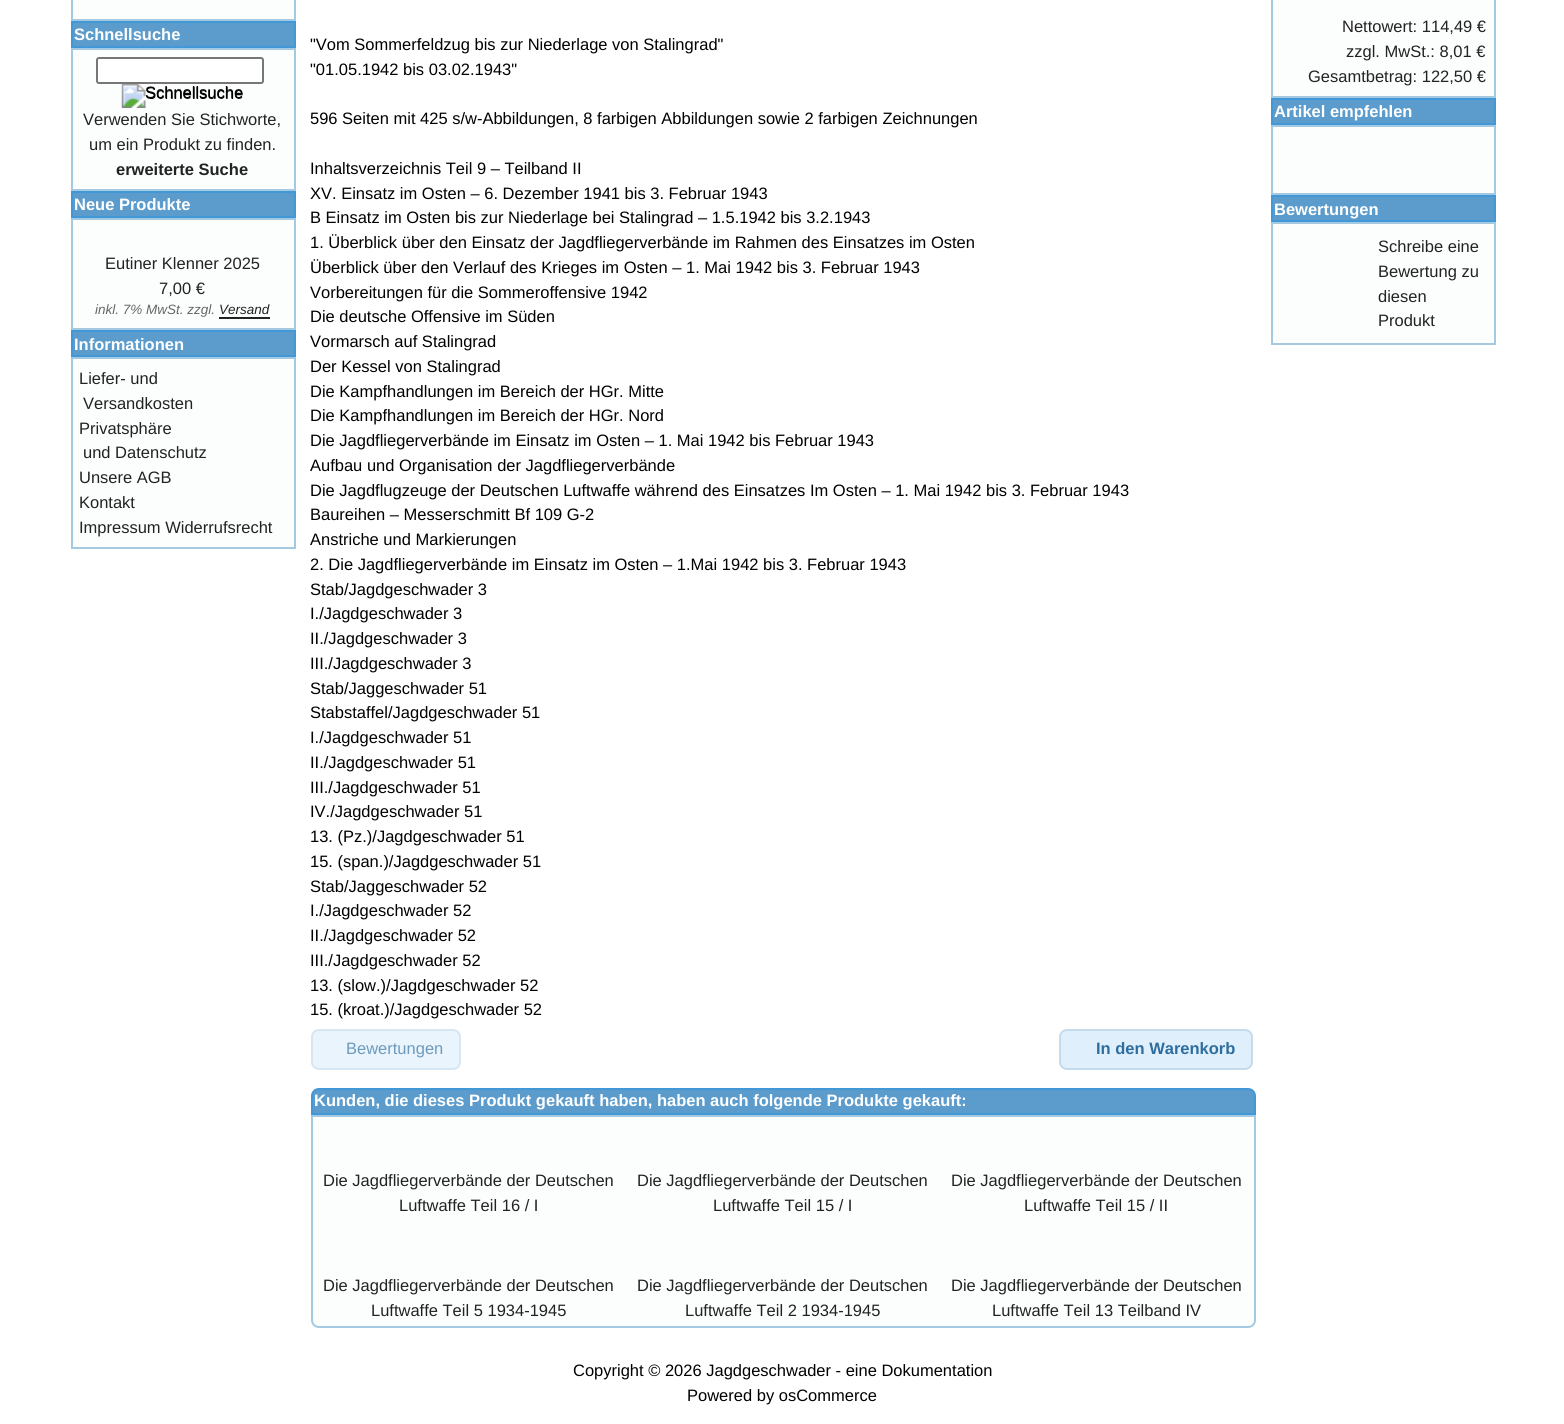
#include <cairo.h>
#include <math.h>
#include <stddef.h>

typedef struct { const char *family; double size; int italic, bold; unsigned color; } style_t;
static cairo_t *ctx;

static void ink(unsigned color) {
    cairo_set_source_rgb(ctx, (color >> 16) / 255.0, (color >> 8 & 255) / 255.0, (color & 255) / 255.0);
}

static void write(double x, double y, const char *s, const style_t *st) {
    cairo_select_font_face(ctx, st->family, st->italic ? CAIRO_FONT_SLANT_ITALIC : CAIRO_FONT_SLANT_NORMAL,
        st->bold ? CAIRO_FONT_WEIGHT_BOLD : CAIRO_FONT_WEIGHT_NORMAL);
    cairo_set_font_size(ctx, st->size);
    ink(st->color);
    cairo_move_to(ctx, x, y);
    cairo_show_text(ctx, s);
}

static void block(double x, double y, double w, double h, unsigned color) {
    ink(color);
    cairo_rectangle(ctx, x, y, w, h);
    cairo_fill(ctx);
}

static void round_path(double x, double y, double w, double h, double r) {
    cairo_new_sub_path(ctx);
    cairo_arc(ctx, x + w - r, y + h - r, r, 0, M_PI / 2);
    cairo_arc(ctx, x + r, y + h - r, r, M_PI / 2, M_PI);
    cairo_arc(ctx, x + r, y + r, r, M_PI, 1.5 * M_PI);
    cairo_arc(ctx, x + w - r, y + r, r, 1.5 * M_PI, 2 * M_PI);
    cairo_close_path(ctx);
}

static void paste(const char *path, double x, double y, double w, double h) {
    cairo_surface_t *image = cairo_image_surface_create_from_png(path);
    cairo_save(ctx);
    cairo_set_source_surface(ctx, image, x, y);
    cairo_rectangle(ctx, x, y, w, h);
    cairo_fill(ctx);
    cairo_restore(ctx);
    cairo_surface_destroy(image);
}

static const style_t s1 = {"Liberation Sans", 16.5, 0, 1, 0xffffff};
static const style_t s2 = {"Liberation Sans", 16.5, 0, 0, 0x000000};
static const style_t s3 = {"Liberation Sans", 16.5, 0, 0, 0x222222};
static const style_t s4 = {"Liberation Sans", 16.5, 0, 1, 0x222222};
static const style_t s5 = {"Liberation Sans", 13.5, 1, 0, 0x666666};
static const style_t s6 = {"Liberation Sans", 13.5, 1, 0, 0x222222};
static const style_t s7 = {"Liberation Sans", 16.5, 0, 0, 0x6d9abb};
static const style_t s8 = {"Liberation Sans", 16.5, 0, 1, 0x2e6e9e};

int main(void) {
    cairo_surface_t *surface = cairo_image_surface_create(CAIRO_FORMAT_RGB24, 1564, 1424);
    ctx = cairo_create(surface);
    cairo_font_options_t *options = cairo_font_options_create();
    cairo_font_options_set_hint_metrics(options, CAIRO_HINT_METRICS_OFF);
    cairo_font_options_set_hint_style(options, CAIRO_HINT_STYLE_NONE);
    cairo_set_font_options(ctx, options);
    cairo_set_miter_limit(ctx, 4);
    ink(0xffffff);
    cairo_paint(ctx);
    ink(0xfcfdfd);
    cairo_rectangle(ctx, 72, -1, 223, 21);
    cairo_fill_preserve(ctx);
    ink(0xa6c9e2);
    cairo_stroke(ctx);
    ink(0x5c9ccc);
    cairo_rectangle(ctx, 72, 22, 223, 25);
    cairo_fill_preserve(ctx);
    ink(0x4297d7);
    cairo_stroke(ctx);
    write(74, 40, "Schnellsuche", &s1);
    ink(0xfcfdfd);
    cairo_rectangle(ctx, 72, 49, 223, 141);
    cairo_fill_preserve(ctx);
    ink(0xa6c9e2);
    cairo_stroke(ctx);
    ink(0xffffff);
    round_path(97, 58, 166, 25, 2);
    cairo_fill_preserve(ctx);
    ink(0x767676);
    cairo_stroke(ctx);
    paste("pic1.png", 121, 84, 122, 24);
    write(145, 98, "Schnellsuche", &s2);
    write(83, 125, "Verwenden Sie Stichworte,", &s3);
    write(89, 150, "um ein Produkt zu finden.", &s3);
    write(116, 175, "erweiterte Suche", &s4);
    ink(0x5c9ccc);
    cairo_rectangle(ctx, 72, 192, 223, 25);
    cairo_fill_preserve(ctx);
    ink(0x4297d7);
    cairo_stroke(ctx);
    write(74, 210, "Neue Produkte", &s1);
    ink(0xfcfdfd);
    cairo_rectangle(ctx, 72, 219, 223, 110);
    cairo_fill_preserve(ctx);
    ink(0xa6c9e2);
    cairo_stroke(ctx);
    write(105, 269, "Eutiner Klenner 2025", &s3);
    write(159, 294, "7,00 €", &s3);
    write(95, 314, "inkl. 7% MwSt. zzgl.", &s5);
    write(219, 314, "Versand", &s6);
    block(219, 317, 51, 2, 0x222222);
    ink(0x5c9ccc);
    cairo_rectangle(ctx, 72, 331, 223, 25);
    cairo_fill_preserve(ctx);
    ink(0x4297d7);
    cairo_stroke(ctx);
    write(74, 350, "Informationen", &s1);
    ink(0xfcfdfd);
    cairo_rectangle(ctx, 72, 358, 223, 190);
    cairo_fill_preserve(ctx);
    ink(0xa6c9e2);
    cairo_stroke(ctx);
    write(79, 384, "Liefer- und", &s3);
    write(83, 409, "Versandkosten", &s3);
    write(79, 434, "Privatsphäre", &s3);
    write(83, 458, "und Datenschutz", &s3);
    write(79, 483, "Unsere AGB", &s3);
    write(79, 508, "Kontakt", &s3);
    write(79, 533, "Impressum Widerrufsrecht", &s3);
    write(310, 50, "\"Vom Sommerfeldzug bis zur Niederlage von Stalingrad\"", &s2);
    write(310, 75, "\"01.05.1942 bis 03.02.1943\"", &s2);
    write(310, 124, "596 Seiten mit 425 s/w-Abbildungen, 8 farbigen Abbildungen sowie 2 farbigen Zeichnungen", &s2);
    write(310, 174, "Inhaltsverzeichnis Teil 9 – Teilband II", &s2);
    write(310, 199, "XV. Einsatz im Osten – 6. Dezember 1941 bis 3. Februar 1943", &s2);
    write(310, 223, "B Einsatz im Osten bis zur Niederlage bei Stalingrad – 1.5.1942 bis 3.2.1943", &s2);
    write(310, 248, "1. Überblick über den Einsatz der Jagdfliegerverbände im Rahmen des Einsatzes im Osten", &s2);
    write(310, 273, "Überblick über den Verlauf des Krieges im Osten – 1. Mai 1942 bis 3. Februar 1943", &s2);
    write(310, 298, "Vorbereitungen für die Sommeroffensive 1942", &s2);
    write(310, 322, "Die deutsche Offensive im Süden", &s2);
    write(310, 347, "Vormarsch auf Stalingrad", &s2);
    write(310, 372, "Der Kessel von Stalingrad", &s2);
    write(310, 397, "Die Kampfhandlungen im Bereich der HGr. Mitte", &s2);
    write(310, 421, "Die Kampfhandlungen im Bereich der HGr. Nord", &s2);
    write(310, 446, "Die Jagdfliegerverbände im Einsatz im Osten – 1. Mai 1942 bis Februar 1943", &s2);
    write(310, 471, "Aufbau und Organisation der Jagdfliegerverbände", &s2);
    write(310, 496, "Die Jagdflugzeuge der Deutschen Luftwaffe während des Einsatzes Im Osten – 1. Mai 1942 bis 3. Februar 1943", &s2);
    write(310, 520, "Baureihen – Messerschmitt Bf 109 G-2", &s2);
    write(310, 545, "Anstriche und Markierungen", &s2);
    write(310, 570, "2. Die Jagdfliegerverbände im Einsatz im Osten – 1.Mai 1942 bis 3. Februar 1943", &s2);
    write(310, 595, "Stab/Jagdgeschwader 3", &s2);
    write(310, 619, "I./Jagdgeschwader 3", &s2);
    write(310, 644, "II./Jagdgeschwader 3", &s2);
    write(310, 669, "III./Jagdgeschwader 3", &s2);
    write(310, 694, "Stab/Jaggeschwader 51", &s2);
    write(310, 718, "Stabstaffel/Jagdgeschwader 51", &s2);
    write(310, 743, "I./Jagdgeschwader 51", &s2);
    write(310, 768, "II./Jagdgeschwader 51", &s2);
    write(310, 793, "III./Jagdgeschwader 51", &s2);
    write(310, 817, "IV./Jagdgeschwader 51", &s2);
    write(310, 842, "13. (Pz.)/Jagdgeschwader 51", &s2);
    write(310, 867, "15. (span.)/Jagdgeschwader 51", &s2);
    write(310, 892, "Stab/Jaggeschwader 52", &s2);
    write(310, 916, "I./Jagdgeschwader 52", &s2);
    write(310, 941, "II./Jagdgeschwader 52", &s2);
    write(310, 966, "III./Jagdgeschwader 52", &s2);
    write(310, 991, "13. (slow.)/Jagdgeschwader 52", &s2);
    write(310, 1015, "15. (kroat.)/Jagdgeschwader 52", &s2);
    ink(0xe9f4fd);
    round_path(312, 1030, 148, 39, 7);
    cairo_fill_preserve(ctx);
    ink(0xd6e6f2);
    cairo_stroke(ctx);
    write(346, 1054, "Bewertungen", &s7);
    ink(0xdfeffc);
    round_path(1060, 1030, 192, 39, 7);
    cairo_fill_preserve(ctx);
    ink(0xc5dbec);
    cairo_stroke(ctx);
    write(1096, 1054, "In den Warenkorb", &s8);
    ink(0x5c9ccc);
    cairo_new_path(ctx);
    cairo_move_to(ctx, 319, 1089);
    cairo_line_to(ctx, 1248, 1089);
    cairo_curve_to(ctx, 1252, 1089, 1255, 1092, 1255, 1096);
    cairo_line_to(ctx, 1255, 1114);
    cairo_line_to(ctx, 312, 1114);
    cairo_line_to(ctx, 312, 1096);
    cairo_curve_to(ctx, 312, 1092, 315, 1089, 319, 1089);
    cairo_close_path(ctx);
    cairo_fill_preserve(ctx);
    ink(0x4297d7);
    cairo_stroke(ctx);
    write(314, 1106, "Kunden, die dieses Produkt gekauft haben, haben auch folgende Produkte gekauft:", &s1);
    ink(0xfcfdfd);
    cairo_new_path(ctx);
    cairo_move_to(ctx, 312, 1116);
    cairo_line_to(ctx, 1255, 1116);
    cairo_line_to(ctx, 1255, 1320);
    cairo_curve_to(ctx, 1255, 1324, 1252, 1327, 1248, 1327);
    cairo_line_to(ctx, 319, 1327);
    cairo_curve_to(ctx, 315, 1327, 312, 1324, 312, 1320);
    cairo_close_path(ctx);
    cairo_fill_preserve(ctx);
    ink(0xa6c9e2);
    cairo_stroke(ctx);
    write(323, 1186, "Die Jagdfliegerverbände der Deutschen", &s3);
    write(399, 1211, "Luftwaffe Teil 16 / I", &s3);
    write(637, 1186, "Die Jagdfliegerverbände der Deutschen", &s3);
    write(713, 1211, "Luftwaffe Teil 15 / I", &s3);
    write(951, 1186, "Die Jagdfliegerverbände der Deutschen", &s3);
    write(1024, 1211, "Luftwaffe Teil 15 / II", &s3);
    write(323, 1291, "Die Jagdfliegerverbände der Deutschen", &s3);
    write(371, 1316, "Luftwaffe Teil 5 1934-1945", &s3);
    write(637, 1291, "Die Jagdfliegerverbände der Deutschen", &s3);
    write(685, 1316, "Luftwaffe Teil 2 1934-1945", &s3);
    write(951, 1291, "Die Jagdfliegerverbände der Deutschen", &s3);
    write(992, 1316, "Luftwaffe Teil 13 Teilband IV", &s3);
    ink(0xfcfdfd);
    cairo_rectangle(ctx, 1272, -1, 223, 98);
    cairo_fill_preserve(ctx);
    ink(0xa6c9e2);
    cairo_stroke(ctx);
    write(1342, 32, "Nettowert: 114,49 €", &s3);
    write(1346, 57, "zzgl. MwSt.: 8,01 €", &s3);
    write(1308, 82, "Gesamtbetrag: 122,50 €", &s3);
    ink(0x5c9ccc);
    cairo_rectangle(ctx, 1272, 99, 223, 25);
    cairo_fill_preserve(ctx);
    ink(0x4297d7);
    cairo_stroke(ctx);
    write(1274, 117, "Artikel empfehlen", &s1);
    ink(0xfcfdfd);
    cairo_rectangle(ctx, 1272, 126, 223, 68);
    cairo_fill_preserve(ctx);
    ink(0xa6c9e2);
    cairo_stroke(ctx);
    ink(0x5c9ccc);
    cairo_rectangle(ctx, 1272, 196, 223, 25);
    cairo_fill_preserve(ctx);
    ink(0x4297d7);
    cairo_stroke(ctx);
    write(1274, 215, "Bewertungen", &s1);
    ink(0xfcfdfd);
    cairo_rectangle(ctx, 1272, 223, 223, 121);
    cairo_fill_preserve(ctx);
    ink(0xa6c9e2);
    cairo_stroke(ctx);
    write(1378, 252, "Schreibe eine", &s3);
    write(1378, 277, "Bewertung zu", &s3);
    write(1378, 302, "diesen", &s3);
    write(1378, 326, "Produkt", &s3);
    write(573, 1376, "Copyright © 2026 Jagdgeschwader - eine Dokumentation", &s2);
    write(687, 1401, "Powered by osCommerce", &s2);
    cairo_surface_write_to_png(surface, "screenshot.png");
    cairo_font_options_destroy(options);
    cairo_destroy(ctx);
    cairo_surface_destroy(surface);
    return 0;
}
